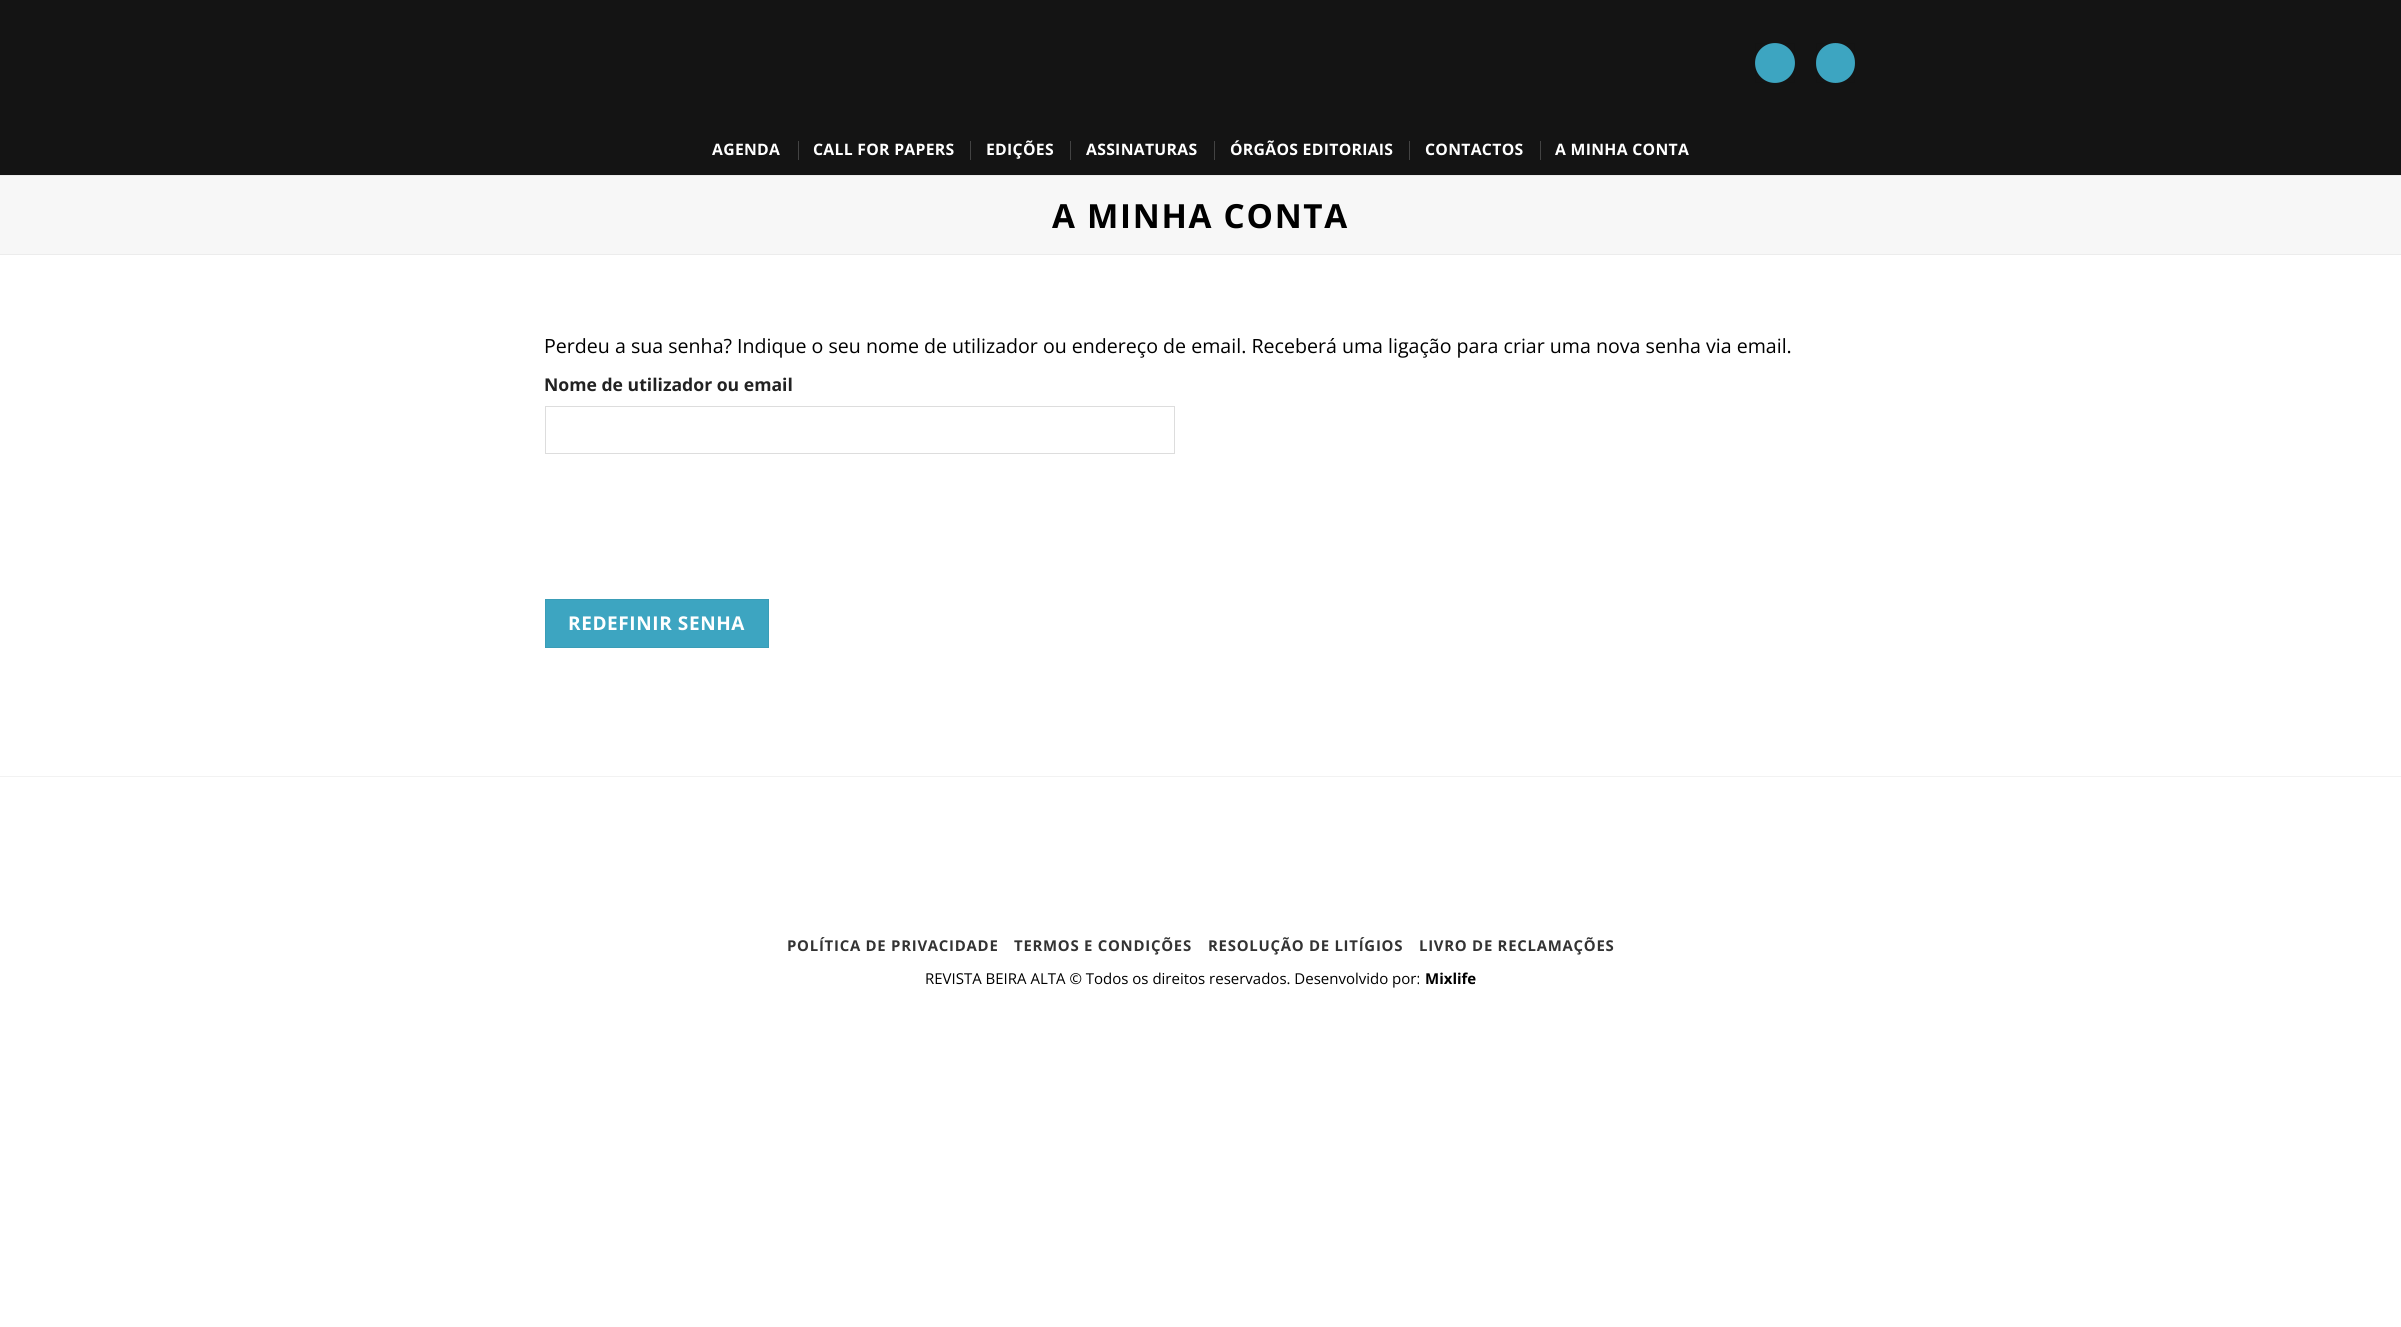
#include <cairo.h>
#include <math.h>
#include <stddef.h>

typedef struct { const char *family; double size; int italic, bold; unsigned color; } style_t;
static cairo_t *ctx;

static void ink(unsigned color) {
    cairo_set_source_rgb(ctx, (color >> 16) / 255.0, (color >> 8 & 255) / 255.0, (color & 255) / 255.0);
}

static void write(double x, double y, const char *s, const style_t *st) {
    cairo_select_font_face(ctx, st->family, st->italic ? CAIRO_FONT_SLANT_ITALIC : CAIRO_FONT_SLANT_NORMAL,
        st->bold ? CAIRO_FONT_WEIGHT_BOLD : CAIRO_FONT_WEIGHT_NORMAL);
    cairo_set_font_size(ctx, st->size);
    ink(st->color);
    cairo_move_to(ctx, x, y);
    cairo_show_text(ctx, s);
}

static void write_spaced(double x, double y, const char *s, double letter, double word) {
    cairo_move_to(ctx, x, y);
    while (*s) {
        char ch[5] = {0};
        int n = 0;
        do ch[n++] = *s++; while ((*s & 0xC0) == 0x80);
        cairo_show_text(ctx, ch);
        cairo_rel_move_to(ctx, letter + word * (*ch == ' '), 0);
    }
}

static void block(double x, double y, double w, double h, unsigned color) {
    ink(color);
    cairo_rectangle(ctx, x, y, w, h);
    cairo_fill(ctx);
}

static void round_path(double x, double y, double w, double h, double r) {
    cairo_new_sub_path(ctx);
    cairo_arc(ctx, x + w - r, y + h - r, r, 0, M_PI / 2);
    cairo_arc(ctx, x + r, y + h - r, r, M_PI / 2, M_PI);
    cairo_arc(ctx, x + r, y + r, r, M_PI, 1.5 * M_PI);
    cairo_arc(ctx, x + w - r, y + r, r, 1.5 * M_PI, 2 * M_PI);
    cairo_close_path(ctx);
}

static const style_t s1 = {"Open Sans", 19.6, 0, 0, 0x000000};
static const style_t s2 = {"Open Sans", 17.6, 0, 1, 0x222222};
static const style_t s3 = {"Open Sans", 15, 0, 0, 0x000000};
static const style_t s4 = {"Open Sans", 15, 0, 1, 0x000000};

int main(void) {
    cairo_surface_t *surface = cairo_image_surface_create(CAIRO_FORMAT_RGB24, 2401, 1327);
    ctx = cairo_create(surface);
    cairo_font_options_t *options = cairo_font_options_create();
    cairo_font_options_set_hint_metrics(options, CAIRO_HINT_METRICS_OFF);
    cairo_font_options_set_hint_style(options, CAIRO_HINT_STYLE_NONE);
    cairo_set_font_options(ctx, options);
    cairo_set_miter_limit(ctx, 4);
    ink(0xffffff);
    cairo_paint(ctx);
    block(0, 0, 2401, 175, 0x141414);
    ink(0x3da5c1);
    cairo_arc(ctx, 1775, 63, 20, 0, 2 * M_PI);
    cairo_fill(ctx);
    cairo_rectangle(ctx, 1755.5, 43.5, 39, 39);
    cairo_set_source_rgba(ctx, 0, 0, 0, 0.05);
    cairo_set_line_width(ctx, 1);
    cairo_stroke(ctx);
    ink(0x3da5c1);
    round_path(1816, 43, 39, 40, 19.5);
    cairo_fill(ctx);
    cairo_rectangle(ctx, 1816.5, 43.5, 38, 39);
    cairo_set_source_rgba(ctx, 0, 0, 0, 0.05);
    cairo_stroke(ctx);
    cairo_select_font_face(ctx, "Open Sans", CAIRO_FONT_SLANT_NORMAL, CAIRO_FONT_WEIGHT_BOLD);
    cairo_set_font_size(ctx, 15.75);
    ink(0xffffff);
    write_spaced(712, 155, "AGENDA", 0.3, 0);
    block(798, 141, 1, 19, 0x434343);
    ink(0xffffff);
    write_spaced(813, 155, "CALL FOR PAPERS", 0.3, 0);
    block(970, 141, 1, 19, 0x434343);
    ink(0xffffff);
    write_spaced(986, 155, "EDIÇÕES", 0.3, 0);
    block(1070, 141, 1, 19, 0x434343);
    ink(0xffffff);
    write_spaced(1086, 155, "ASSINATURAS", 0.3, 0);
    block(1214, 141, 1, 19, 0x434343);
    ink(0xffffff);
    write_spaced(1230, 155, "ÓRGÃOS EDITORIAIS", 0.3, 0);
    block(1409, 141, 1, 19, 0x434343);
    ink(0xffffff);
    write_spaced(1425, 155, "CONTACTOS", 0.3, 0);
    block(1540, 141, 1, 19, 0x434343);
    ink(0xffffff);
    write_spaced(1555, 155, "A MINHA CONTA", 0.3, 0);
    block(0, 176, 2401, 78, 0xf7f7f7);
    block(0, 175, 2401, 1, 0xececec);
    block(0, 254, 2401, 1, 0xececec);
    cairo_set_font_size(ctx, 33.25);
    ink(0x000000);
    write_spaced(1052, 228, "A MINHA CONTA", 1.7, 0);
    write(544, 353, "Perdeu a sua senha? Indique o seu nome de utilizador ou endereço de email. Receberá uma ligação para criar uma nova senha via email.", &s1);
    write(544, 391, "Nome de utilizador ou email", &s2);
    cairo_rectangle(ctx, 545.5, 406.5, 629, 47);
    ink(0xdddddd);
    cairo_stroke(ctx);
    ink(0x3da5c1);
    cairo_rectangle(ctx, 545.5, 599.5, 223, 48);
    cairo_fill_preserve(ctx);
    ink(0x3a9db7);
    cairo_stroke(ctx);
    cairo_set_font_size(ctx, 19);
    ink(0xffffff);
    write_spaced(568, 630, "REDEFINIR SENHA", 0.6, 0);
    block(0, 776, 2401, 1, 0xf2f2f2);
    cairo_set_font_size(ctx, 14.9);
    ink(0x333333);
    write_spaced(787, 951, "POLÍTICA DE PRIVACIDADE", 0.75, 0);
    write_spaced(1014, 951, "TERMOS E CONDIÇÕES", 0.75, 0);
    write_spaced(1208, 951, "RESOLUÇÃO DE LITÍGIOS", 0.75, 0);
    write_spaced(1419, 951, "LIVRO DE RECLAMAÇÕES", 0.75, 0);
    write(925, 984, "REVISTA BEIRA ALTA © Todos os direitos reservados. Desenvolvido por:", &s3);
    write(1425, 984, "Mixlife", &s4);
    cairo_surface_write_to_png(surface, "screenshot.png");
    cairo_font_options_destroy(options);
    cairo_destroy(ctx);
    cairo_surface_destroy(surface);
    return 0;
}
